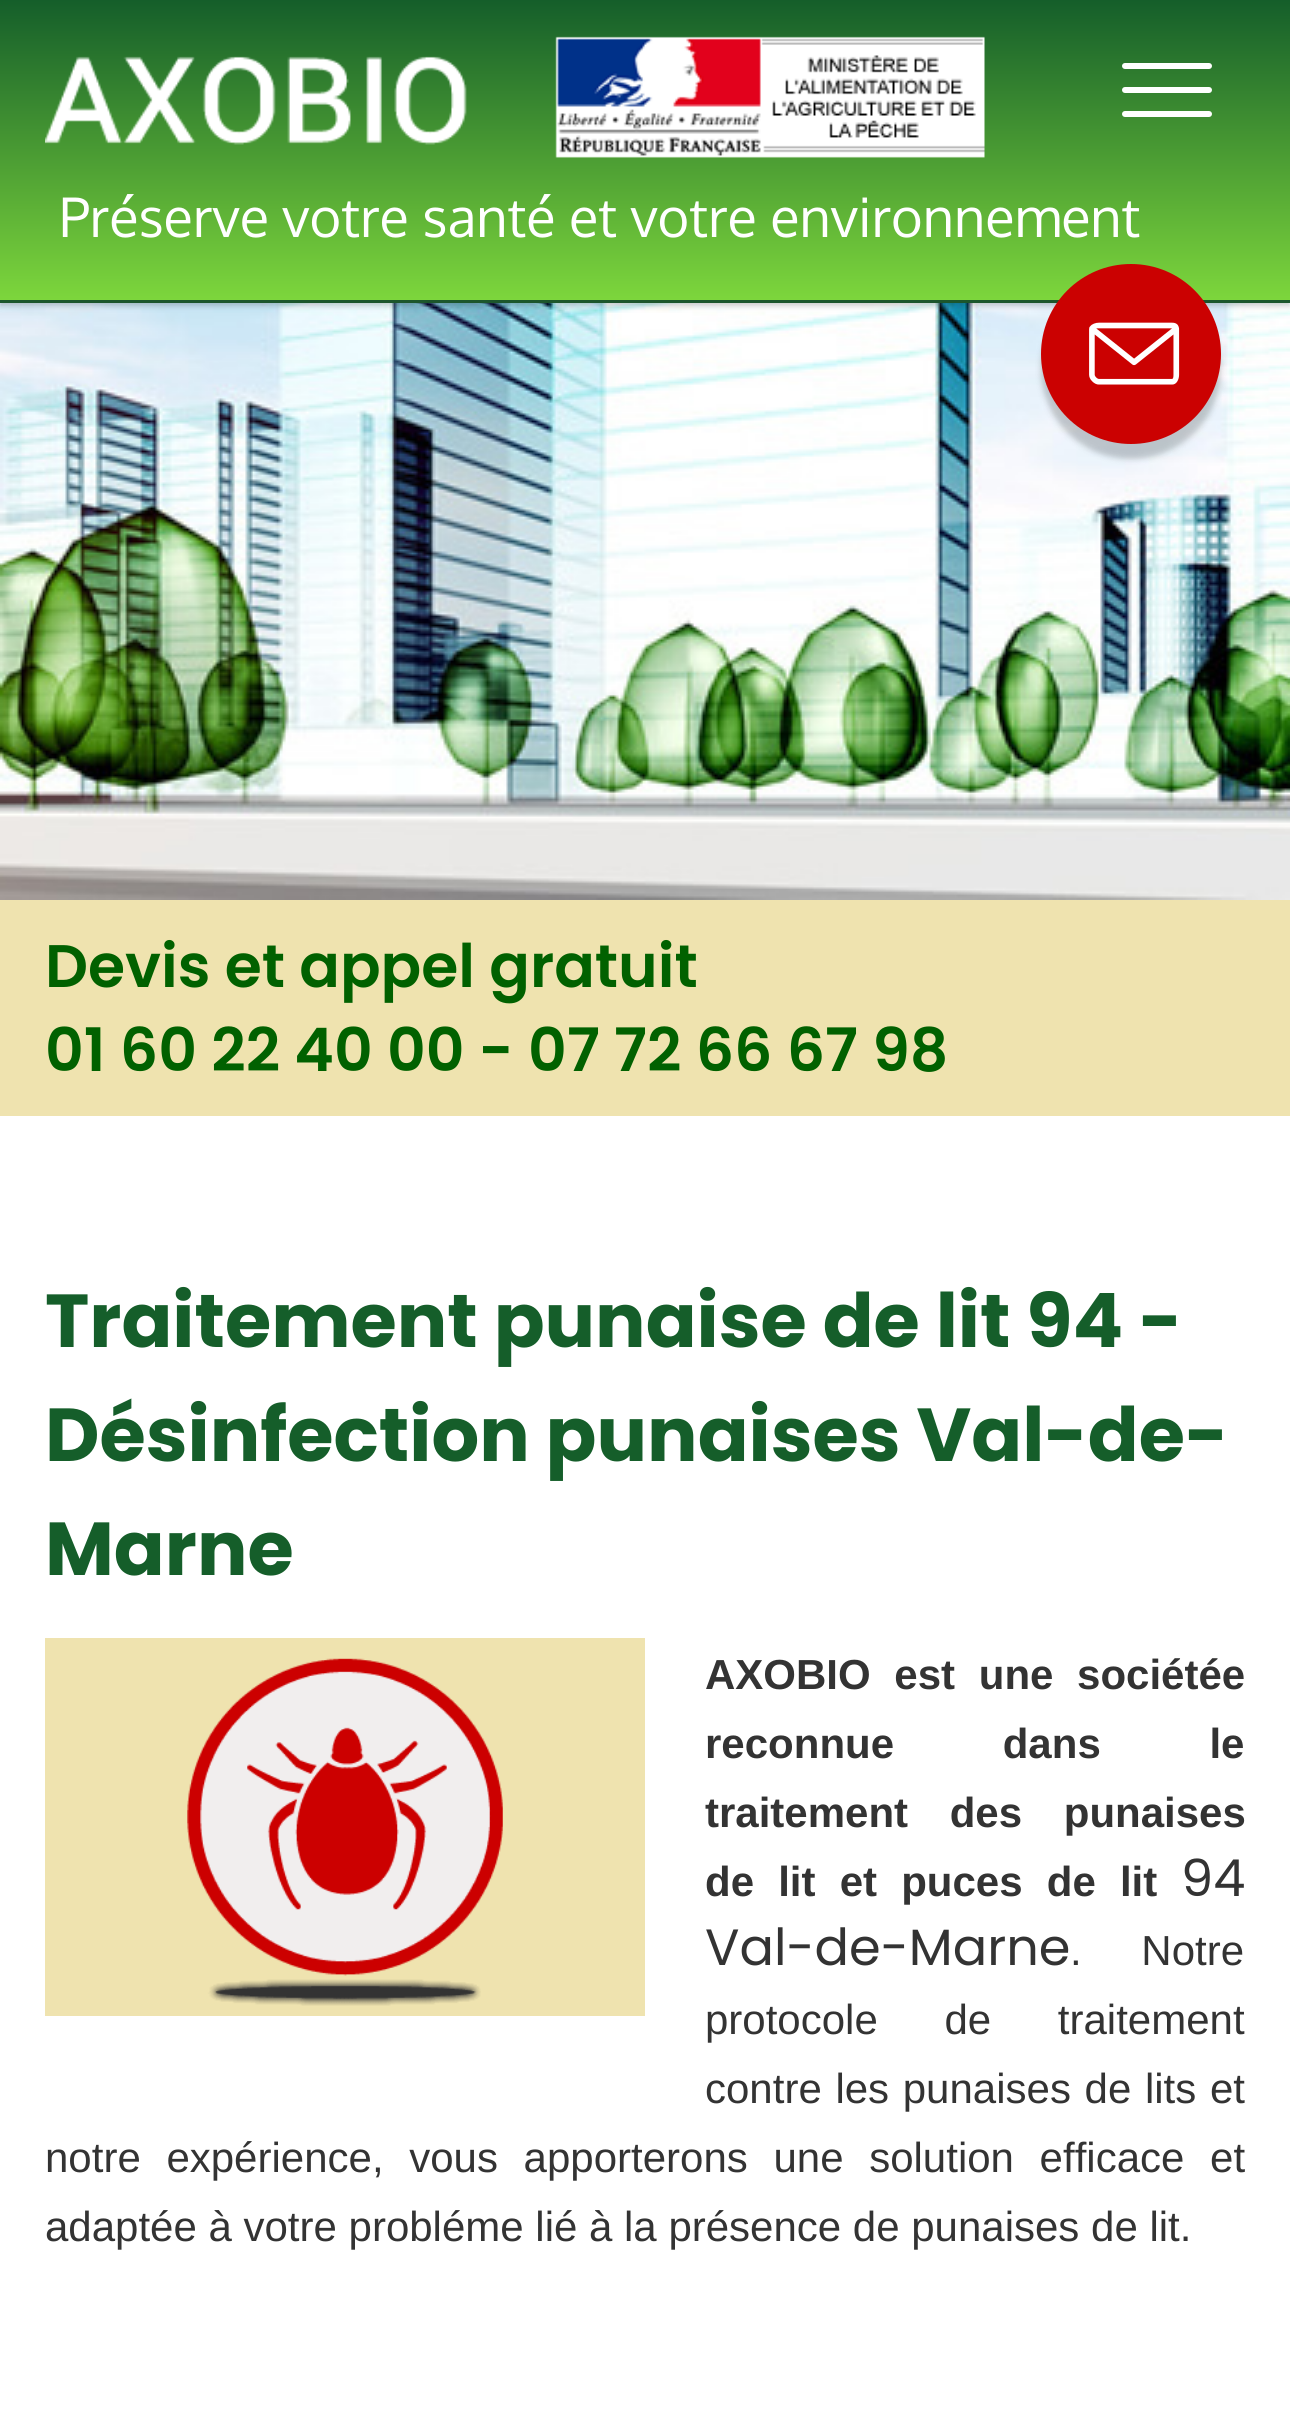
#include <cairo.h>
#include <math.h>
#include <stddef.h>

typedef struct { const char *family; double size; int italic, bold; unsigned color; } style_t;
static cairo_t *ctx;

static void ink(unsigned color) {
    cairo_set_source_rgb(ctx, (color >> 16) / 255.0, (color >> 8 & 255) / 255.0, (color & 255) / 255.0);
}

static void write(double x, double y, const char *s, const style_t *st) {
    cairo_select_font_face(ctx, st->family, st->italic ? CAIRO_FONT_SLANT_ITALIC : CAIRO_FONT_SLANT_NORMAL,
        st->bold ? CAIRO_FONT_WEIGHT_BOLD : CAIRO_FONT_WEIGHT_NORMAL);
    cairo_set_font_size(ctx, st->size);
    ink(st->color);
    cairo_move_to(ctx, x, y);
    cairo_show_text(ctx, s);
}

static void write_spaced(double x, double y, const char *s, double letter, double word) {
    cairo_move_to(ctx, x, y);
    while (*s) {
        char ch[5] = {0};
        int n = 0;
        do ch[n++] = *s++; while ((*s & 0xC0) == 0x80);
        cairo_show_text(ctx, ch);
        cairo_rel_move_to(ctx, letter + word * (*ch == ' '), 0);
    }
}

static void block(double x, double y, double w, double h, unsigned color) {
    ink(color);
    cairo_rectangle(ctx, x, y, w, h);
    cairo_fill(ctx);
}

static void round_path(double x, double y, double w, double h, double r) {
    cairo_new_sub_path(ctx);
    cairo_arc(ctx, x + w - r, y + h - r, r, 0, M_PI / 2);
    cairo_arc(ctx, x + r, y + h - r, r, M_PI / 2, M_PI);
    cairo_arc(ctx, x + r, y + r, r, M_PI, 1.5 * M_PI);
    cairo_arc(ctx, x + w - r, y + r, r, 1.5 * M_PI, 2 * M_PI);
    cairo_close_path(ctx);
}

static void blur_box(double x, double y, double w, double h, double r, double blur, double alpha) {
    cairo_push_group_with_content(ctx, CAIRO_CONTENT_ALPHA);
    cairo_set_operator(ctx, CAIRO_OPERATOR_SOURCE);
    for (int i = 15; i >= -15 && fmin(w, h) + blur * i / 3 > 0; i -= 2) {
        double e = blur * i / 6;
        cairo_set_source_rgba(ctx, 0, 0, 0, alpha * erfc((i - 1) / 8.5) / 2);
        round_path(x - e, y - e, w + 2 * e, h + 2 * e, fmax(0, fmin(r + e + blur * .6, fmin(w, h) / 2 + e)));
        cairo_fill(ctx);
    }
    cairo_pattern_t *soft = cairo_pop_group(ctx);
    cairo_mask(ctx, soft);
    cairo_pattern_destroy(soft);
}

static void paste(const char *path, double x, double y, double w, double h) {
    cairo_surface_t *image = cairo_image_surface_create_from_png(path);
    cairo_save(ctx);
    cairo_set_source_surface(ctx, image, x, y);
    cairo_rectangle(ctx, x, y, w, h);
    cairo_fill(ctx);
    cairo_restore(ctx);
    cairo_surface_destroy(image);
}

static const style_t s1 = {"Oxygen", 54, 0, 0, 0xffffff};
static const style_t s2 = {"Poppins SemiBold", 60, 0, 0, 0x016100};
static const style_t s3 = {"Poppins", 75, 0, 1, 0x155e2a};
static const style_t s4 = {"Poppins", 51, 0, 0, 0x333333};
static const style_t s5 = {"Liberation Sans", 42, 0, 0, 0x333333};

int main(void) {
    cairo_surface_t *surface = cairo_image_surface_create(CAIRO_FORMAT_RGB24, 1290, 2413);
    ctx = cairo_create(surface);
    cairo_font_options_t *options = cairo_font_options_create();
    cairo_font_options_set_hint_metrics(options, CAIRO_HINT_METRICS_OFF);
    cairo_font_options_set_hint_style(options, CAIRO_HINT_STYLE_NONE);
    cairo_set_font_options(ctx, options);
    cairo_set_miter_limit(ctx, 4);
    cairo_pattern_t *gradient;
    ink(0xffffff);
    cairo_paint(ctx);
    paste("pic3.png", 0, 303, 1290, 597);
    ink(0x000000);
    blur_box(0, 3, 1290, 303, 0, 3, 0.2);
    gradient = cairo_pattern_create_linear(645, 0, 645, 300);
    cairo_pattern_add_color_stop_rgba(gradient, 0, 0.082, 0.369, 0.165, 1);
    cairo_pattern_add_color_stop_rgba(gradient, 1, 0.49, 0.839, 0.235, 1);
    cairo_set_source(ctx, gradient);
    cairo_pattern_destroy(gradient);
    cairo_rectangle(ctx, 0, 0, 1290, 300);
    cairo_fill(ctx);
    block(0, 300, 1290, 3, 0x1c562c);
    paste("pic1.png", 45, 36, 940, 122);
    ink(0xffffff);
    round_path(1122, 63, 90, 6, 3);
    cairo_fill(ctx);
    round_path(1122, 87, 90, 6, 3);
    cairo_fill(ctx);
    round_path(1122, 111, 90, 6, 3);
    cairo_fill(ctx);
    write(59, 237, "Préserve votre santé et votre environnement", &s1);
    ink(0x000000);
    blur_box(1041, 279, 180, 180, 90, 3, 0.2);
    ink(0xcb0101);
    cairo_arc(ctx, 1131, 354, 90, 0, 2 * M_PI);
    cairo_fill(ctx);
    paste("pic2.png", 1089, 322, 91, 63);
    block(0, 900, 1290, 216, 0xefe3af);
    write(45, 987, "Devis et appel gratuit", &s2);
    write(45, 1071, "01 60 22 40 00 - 07 72 66 67 98", &s2);
    write(45, 1347, "Traitement punaise de lit 94 -", &s3);
    write(45, 1461, "Désinfection punaises Val-de-", &s3);
    write(45, 1575, "Marne", &s3);
    paste("pic4.png", 45, 1638, 600, 378);
    cairo_select_font_face(ctx, "Liberation Sans", CAIRO_FONT_SLANT_NORMAL, CAIRO_FONT_WEIGHT_BOLD);
    cairo_set_font_size(ctx, 42);
    ink(0x333333);
    write_spaced(705, 1689, "AXOBIO est une sociétée", 0, 12);
    write_spaced(705, 1758, "reconnue dans le", 0, 97);
    write_spaced(705, 1827, "traitement des punaises", 0, 30);
    write_spaced(705, 1896, "de lit et puces de lit", 0, 12.5);
    write(1181, 1896, "94", &s4);
    write(705, 1965, "Val-de-Marne", &s4);
    cairo_select_font_face(ctx, "Liberation Sans", CAIRO_FONT_SLANT_NORMAL, CAIRO_FONT_WEIGHT_NORMAL);
    cairo_set_font_size(ctx, 42);
    write_spaced(1070, 1965, ". Notre", 0, 48);
    write_spaced(705, 2034, "protocole de traitement", 0, 55);
    write_spaced(705, 2103, "contre les punaises de lits et", 0, 2);
    write_spaced(45, 2172, "notre expérience, vous apporterons une solution efficace et", 0, 14);
    write(45, 2241, "adaptée à votre probléme lié à la présence de punaises de lit.", &s5);
    cairo_surface_write_to_png(surface, "screenshot.png");
    cairo_font_options_destroy(options);
    cairo_destroy(ctx);
    cairo_surface_destroy(surface);
    return 0;
}
